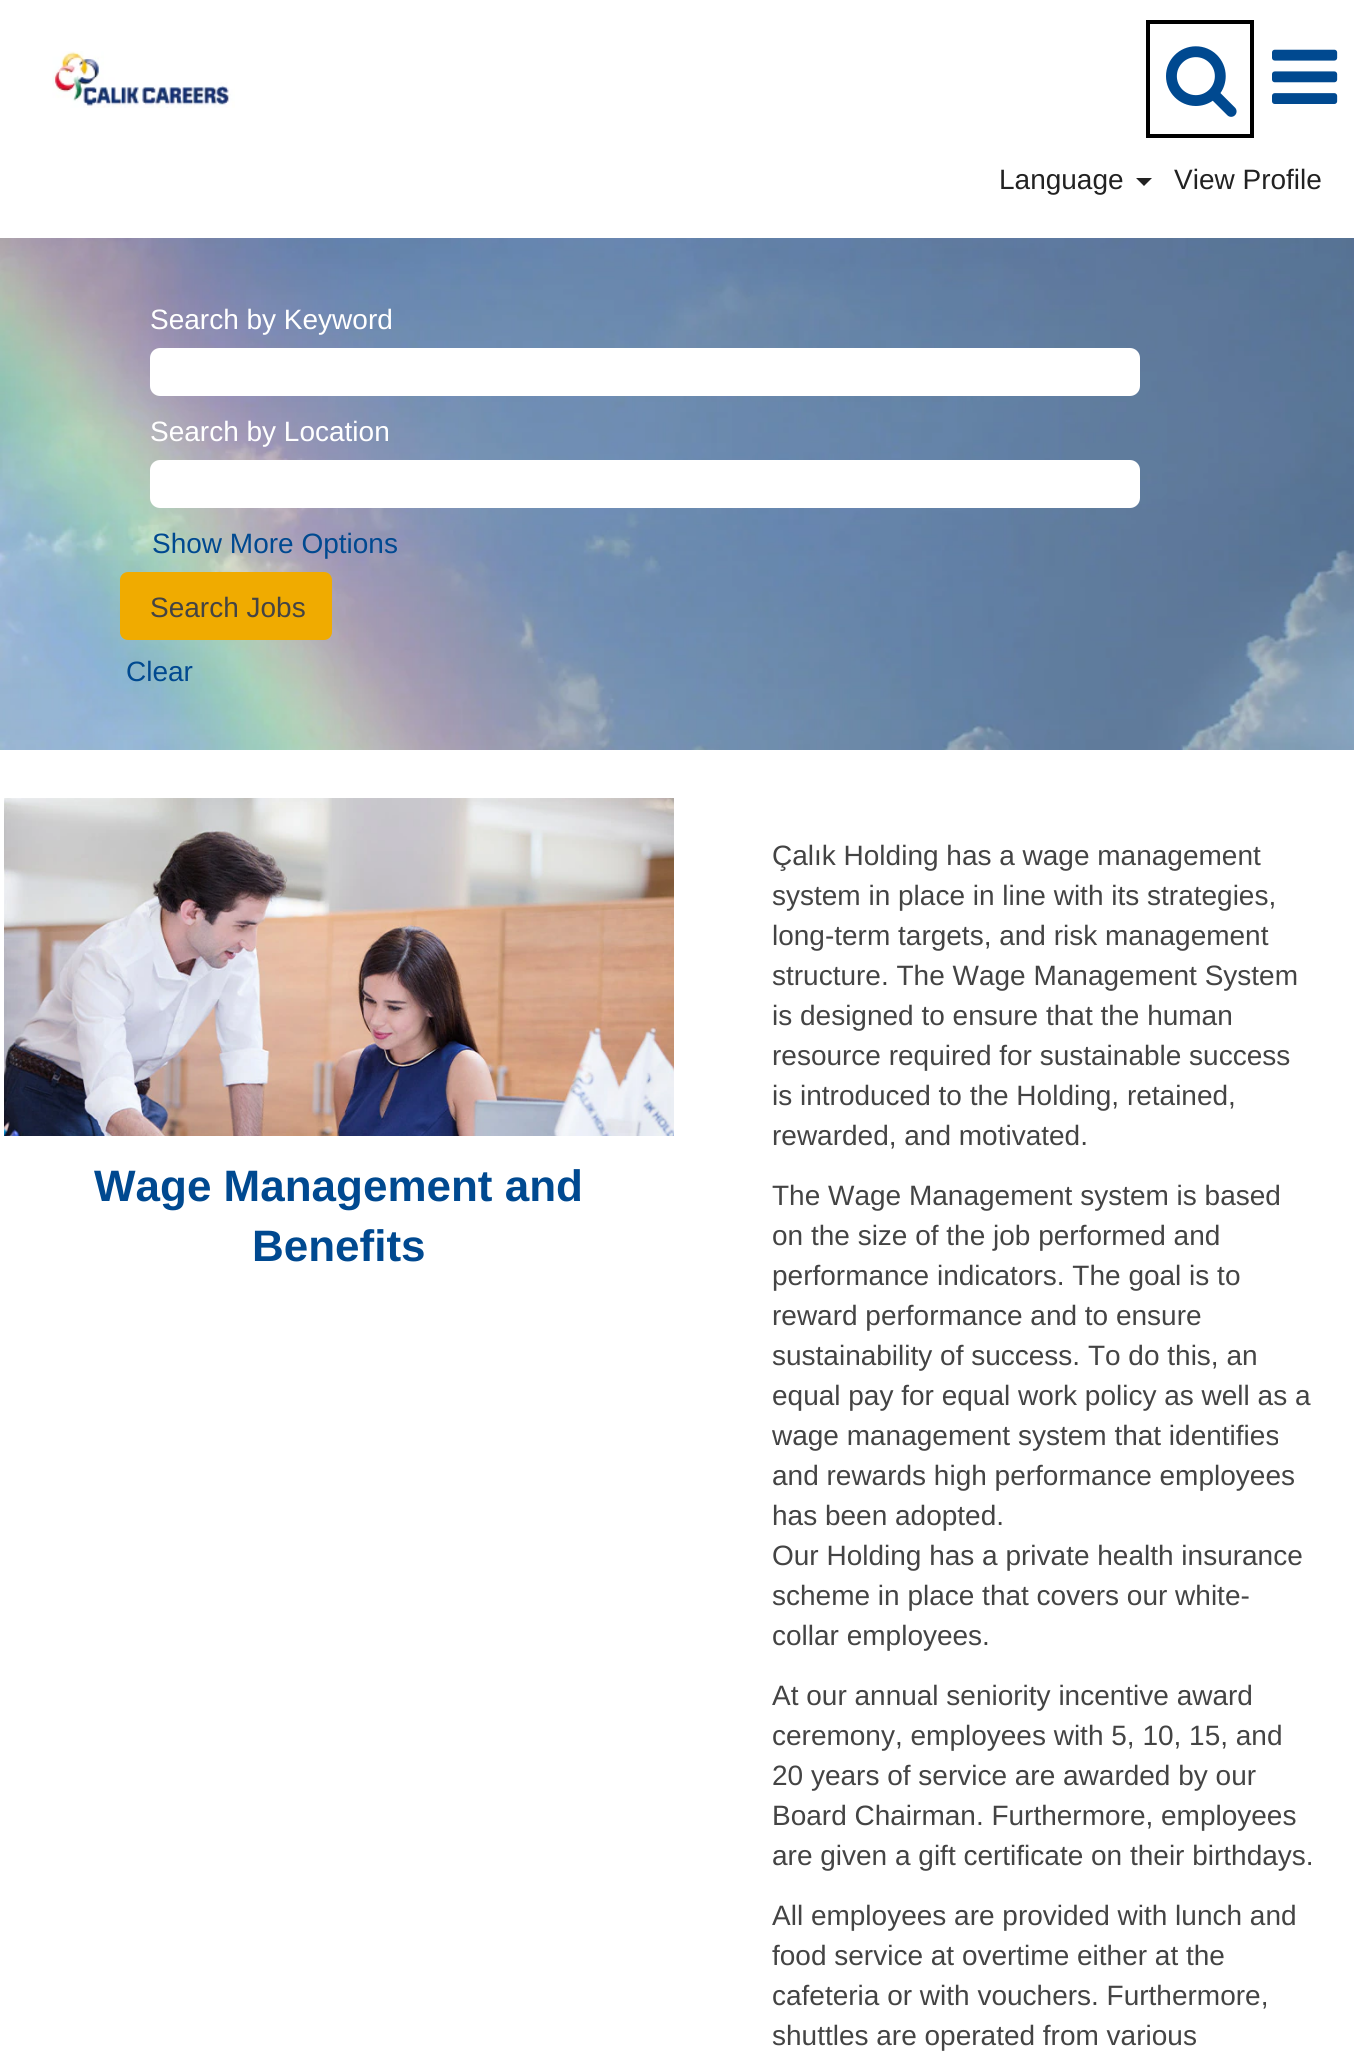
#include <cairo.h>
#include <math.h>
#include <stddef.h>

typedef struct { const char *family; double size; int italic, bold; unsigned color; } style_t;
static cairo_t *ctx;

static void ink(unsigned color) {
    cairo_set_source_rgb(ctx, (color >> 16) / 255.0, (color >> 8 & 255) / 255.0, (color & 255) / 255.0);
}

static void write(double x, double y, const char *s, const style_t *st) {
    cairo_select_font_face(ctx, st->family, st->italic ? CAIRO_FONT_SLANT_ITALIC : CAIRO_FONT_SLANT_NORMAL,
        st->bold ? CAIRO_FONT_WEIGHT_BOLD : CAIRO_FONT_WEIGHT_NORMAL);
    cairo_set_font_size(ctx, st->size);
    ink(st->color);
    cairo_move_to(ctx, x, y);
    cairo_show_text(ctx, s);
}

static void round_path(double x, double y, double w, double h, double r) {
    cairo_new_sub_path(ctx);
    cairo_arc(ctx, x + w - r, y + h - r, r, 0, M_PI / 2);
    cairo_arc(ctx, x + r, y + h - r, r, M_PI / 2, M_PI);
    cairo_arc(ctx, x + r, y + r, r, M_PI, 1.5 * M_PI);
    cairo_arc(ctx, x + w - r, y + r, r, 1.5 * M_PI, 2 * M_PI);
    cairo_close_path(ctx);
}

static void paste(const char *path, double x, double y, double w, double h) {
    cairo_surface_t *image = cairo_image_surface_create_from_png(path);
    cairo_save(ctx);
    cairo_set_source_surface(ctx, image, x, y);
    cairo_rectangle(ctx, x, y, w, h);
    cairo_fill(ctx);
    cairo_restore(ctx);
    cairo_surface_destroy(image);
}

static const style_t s1 = {"Liberation Sans", 28, 0, 0, 0x222222};
static const style_t s2 = {"Liberation Sans", 28, 0, 0, 0xffffff};
static const style_t s3 = {"Liberation Sans", 28, 0, 0, 0x004990};
static const style_t s4 = {"Liberation Sans", 28, 0, 0, 0x444444};
static const style_t s5 = {"Liberation Sans", 44, 0, 1, 0x004990};

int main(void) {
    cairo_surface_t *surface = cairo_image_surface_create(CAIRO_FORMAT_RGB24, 1354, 2068);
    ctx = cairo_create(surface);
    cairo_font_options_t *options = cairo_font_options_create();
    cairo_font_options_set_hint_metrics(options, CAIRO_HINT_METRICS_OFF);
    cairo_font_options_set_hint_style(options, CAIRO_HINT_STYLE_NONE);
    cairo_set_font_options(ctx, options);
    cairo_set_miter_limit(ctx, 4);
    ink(0xffffff);
    cairo_paint(ctx);
    paste("pic1.png", 52, 51, 183, 57);
    cairo_rectangle(ctx, 1148, 22, 104, 114);
    ink(0x000000);
    cairo_set_line_width(ctx, 4);
    cairo_stroke(ctx);
    paste("pic2.png", 1166, 46, 71, 71);
    paste("pic3.png", 1272, 49, 66, 55);
    write(999, 189, "Language", &s1);
    cairo_new_path(ctx);
    cairo_move_to(ctx, 1136, 178);
    cairo_line_to(ctx, 1152, 178);
    cairo_line_to(ctx, 1144, 186);
    cairo_close_path(ctx);
    cairo_fill(ctx);
    write(1174, 189, "View Profile", &s1);
    paste("pic4.png", 0, 238, 1354, 512);
    write(150, 329, "Search by Keyword", &s2);
    round_path(150, 348, 990, 48, 10);
    cairo_fill(ctx);
    write(150, 441, "Search by Location", &s2);
    round_path(150, 460, 990, 48, 10);
    cairo_fill(ctx);
    write(152, 553, "Show More Options", &s3);
    ink(0xf0ab00);
    round_path(120, 572, 212, 68, 8);
    cairo_fill(ctx);
    write(150, 617, "Search Jobs", &s4);
    write(126, 681, "Clear", &s3);
    paste("pic5.png", 4, 798, 670, 338);
    write(94, 1201, "Wage Management and", &s5);
    write(252, 1261, "Benefits", &s5);
    write(772, 865, "Çalık Holding has a wage management", &s4);
    write(772, 905, "system in place in line with its strategies,", &s4);
    write(772, 945, "long-term targets, and risk management", &s4);
    write(772, 985, "structure. The Wage Management System", &s4);
    write(772, 1025, "is designed to ensure that the human", &s4);
    write(772, 1065, "resource required for sustainable success", &s4);
    write(772, 1105, "is introduced to the Holding, retained,", &s4);
    write(772, 1145, "rewarded, and motivated.", &s4);
    write(772, 1205, "The Wage Management system is based", &s4);
    write(772, 1245, "on the size of the job performed and", &s4);
    write(772, 1285, "performance indicators. The goal is to", &s4);
    write(772, 1325, "reward performance and to ensure", &s4);
    write(772, 1365, "sustainability of success. To do this, an", &s4);
    write(772, 1405, "equal pay for equal work policy as well as a", &s4);
    write(772, 1445, "wage management system that identifies", &s4);
    write(772, 1485, "and rewards high performance employees", &s4);
    write(772, 1525, "has been adopted.", &s4);
    write(772, 1565, "Our Holding has a private health insurance", &s4);
    write(772, 1605, "scheme in place that covers our white-", &s4);
    write(772, 1645, "collar employees.", &s4);
    write(772, 1705, "At our annual seniority incentive award", &s4);
    write(772, 1745, "ceremony, employees with 5, 10, 15, and", &s4);
    write(772, 1785, "20 years of service are awarded by our", &s4);
    write(772, 1825, "Board Chairman. Furthermore, employees", &s4);
    write(772, 1865, "are given a gift certificate on their birthdays.", &s4);
    write(772, 1925, "All employees are provided with lunch and", &s4);
    write(772, 1965, "food service at overtime either at the", &s4);
    write(772, 2005, "cafeteria or with vouchers. Furthermore,", &s4);
    write(772, 2045, "shuttles are operated from various", &s4);
    cairo_surface_write_to_png(surface, "screenshot.png");
    cairo_font_options_destroy(options);
    cairo_destroy(ctx);
    cairo_surface_destroy(surface);
    return 0;
}
